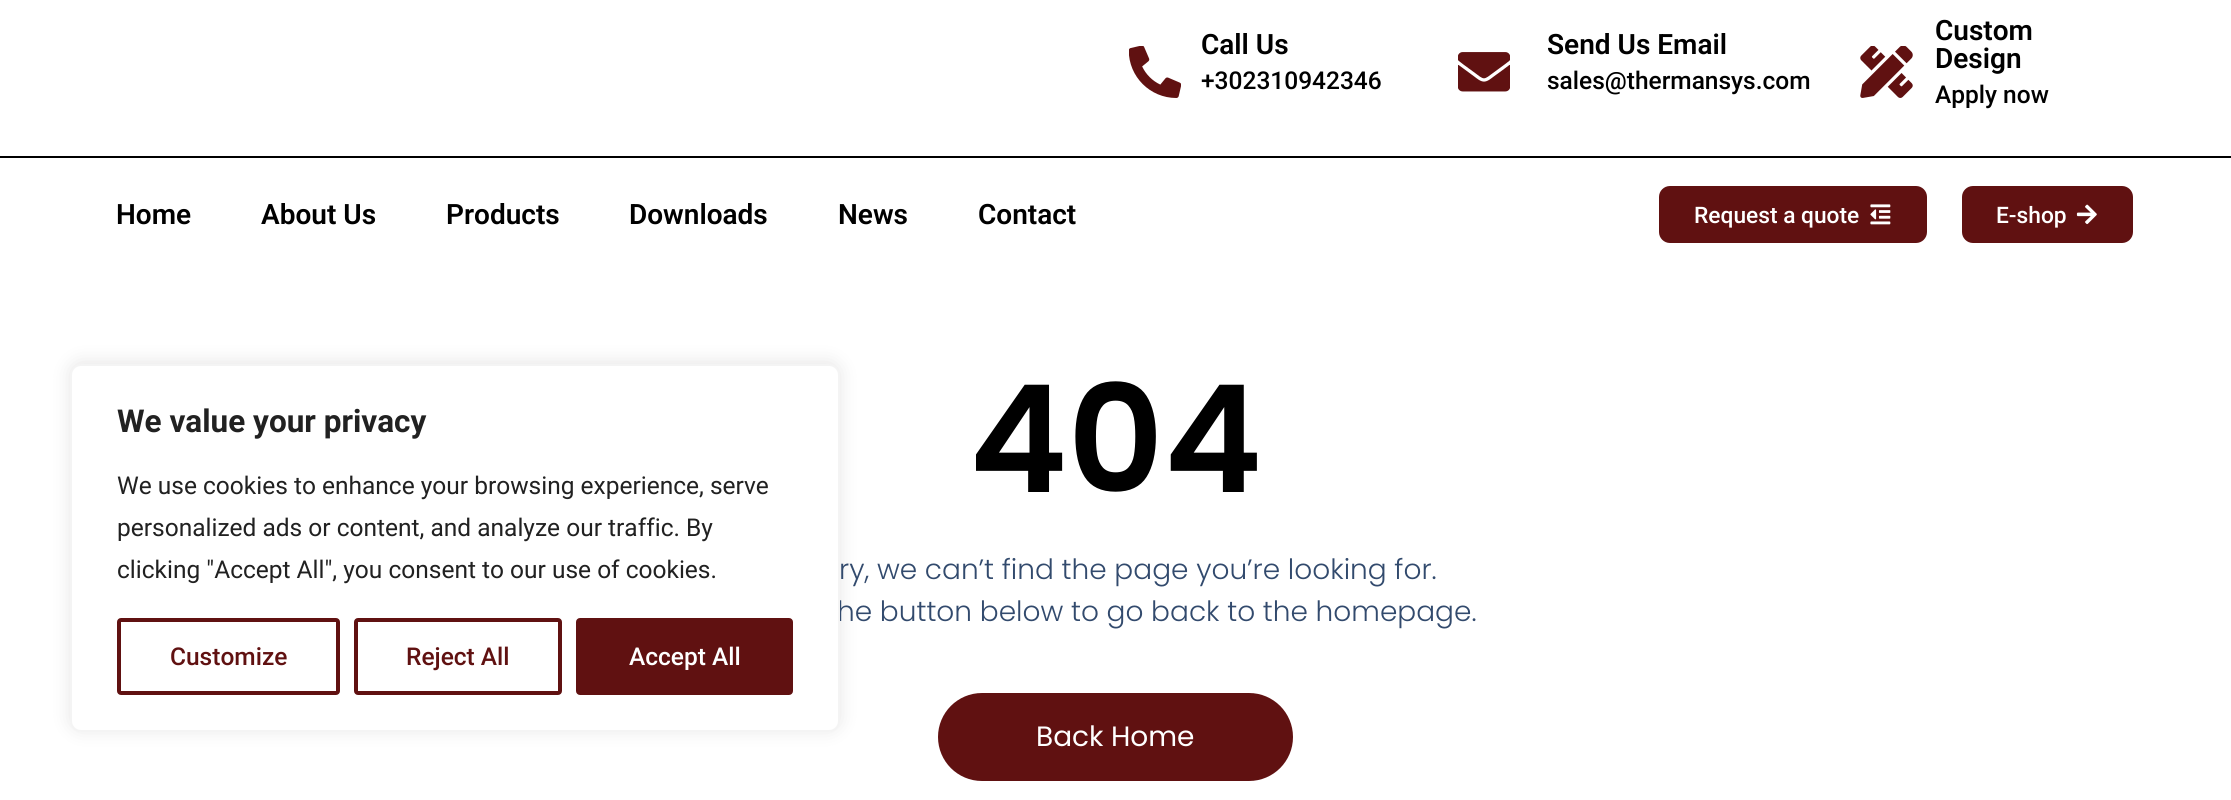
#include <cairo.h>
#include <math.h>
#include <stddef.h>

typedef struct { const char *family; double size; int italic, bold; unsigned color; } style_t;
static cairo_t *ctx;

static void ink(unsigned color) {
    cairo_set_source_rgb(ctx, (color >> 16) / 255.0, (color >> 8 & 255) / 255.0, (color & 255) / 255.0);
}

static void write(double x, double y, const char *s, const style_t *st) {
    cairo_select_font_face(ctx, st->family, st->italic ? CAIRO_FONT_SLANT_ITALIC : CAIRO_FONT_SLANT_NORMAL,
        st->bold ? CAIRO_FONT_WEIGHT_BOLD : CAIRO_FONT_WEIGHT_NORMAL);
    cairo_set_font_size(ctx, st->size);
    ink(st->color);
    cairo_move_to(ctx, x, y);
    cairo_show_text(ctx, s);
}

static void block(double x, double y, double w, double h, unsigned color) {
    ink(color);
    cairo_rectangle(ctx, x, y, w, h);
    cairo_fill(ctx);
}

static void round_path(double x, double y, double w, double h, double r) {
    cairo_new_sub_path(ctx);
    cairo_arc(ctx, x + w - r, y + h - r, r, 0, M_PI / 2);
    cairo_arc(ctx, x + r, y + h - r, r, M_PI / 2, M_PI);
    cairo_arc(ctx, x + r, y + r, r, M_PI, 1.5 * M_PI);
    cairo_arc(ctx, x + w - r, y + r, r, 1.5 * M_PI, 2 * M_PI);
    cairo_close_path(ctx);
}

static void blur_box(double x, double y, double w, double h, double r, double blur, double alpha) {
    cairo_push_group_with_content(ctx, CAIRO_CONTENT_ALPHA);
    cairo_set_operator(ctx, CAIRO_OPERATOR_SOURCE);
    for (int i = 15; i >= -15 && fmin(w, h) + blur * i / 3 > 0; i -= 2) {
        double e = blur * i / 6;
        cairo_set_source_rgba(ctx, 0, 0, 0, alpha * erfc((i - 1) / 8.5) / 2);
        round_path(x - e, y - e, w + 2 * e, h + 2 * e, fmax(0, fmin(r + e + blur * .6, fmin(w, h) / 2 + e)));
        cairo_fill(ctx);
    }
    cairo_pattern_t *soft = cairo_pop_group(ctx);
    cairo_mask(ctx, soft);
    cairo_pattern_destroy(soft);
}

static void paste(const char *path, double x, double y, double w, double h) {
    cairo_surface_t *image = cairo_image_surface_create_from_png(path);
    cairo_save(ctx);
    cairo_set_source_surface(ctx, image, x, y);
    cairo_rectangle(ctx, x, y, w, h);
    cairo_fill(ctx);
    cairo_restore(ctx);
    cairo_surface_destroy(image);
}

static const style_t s1 = {"Roboto SemiBold", 28, 0, 0, 0x000000};
static const style_t s2 = {"Roboto Medium", 24.5, 0, 0, 0x000000};
static const style_t s3 = {"Roboto Medium", 22.75, 0, 0, 0xffffff};
static const style_t s4 = {"Poppins Light", 28, 0, 0, 0x324a6d};
static const style_t s5 = {"Roboto", 31.5, 0, 1, 0x212121};
static const style_t s6 = {"Roboto", 24.5, 0, 0, 0x212121};
static const style_t s7 = {"Roboto Medium", 24.5, 0, 0, 0x601111};
static const style_t s8 = {"Roboto Medium", 24.5, 0, 0, 0xffffff};
static const style_t s9 = {"Poppins SemiBold", 149, 0, 0, 0x000000};
static const style_t s10 = {"Poppins", 28, 0, 0, 0xffffff};

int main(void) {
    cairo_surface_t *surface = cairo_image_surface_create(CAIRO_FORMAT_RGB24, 2231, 800);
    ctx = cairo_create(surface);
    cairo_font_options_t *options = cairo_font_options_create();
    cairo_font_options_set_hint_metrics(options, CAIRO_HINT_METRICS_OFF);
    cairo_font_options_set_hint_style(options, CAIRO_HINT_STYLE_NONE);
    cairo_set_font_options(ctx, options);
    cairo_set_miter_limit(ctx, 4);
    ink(0xffffff);
    cairo_paint(ctx);
    block(0, 156, 2231, 2, 0x000000);
    paste("pic1.png", 1129, 46, 52, 52);
    write(1201, 54, "Call Us", &s1);
    write(1201, 89, "+302310942346", &s2);
    paste("pic2.png", 1458, 52, 52, 40);
    write(1547, 54, "Send Us Email", &s1);
    write(1547, 89, "sales@thermansys.com", &s2);
    paste("pic3.png", 1860, 46, 53, 52);
    write(1935, 40, "Custom", &s1);
    write(1935, 68, "Design", &s1);
    write(1935, 103, "Apply now", &s2);
    write(116, 224, "Home", &s1);
    write(261, 224, "About Us", &s1);
    write(446, 224, "Products", &s1);
    write(629, 224, "Downloads", &s1);
    write(838, 224, "News", &s1);
    write(978, 224, "Contact", &s1);
    ink(0x601111);
    round_path(1659, 186, 268, 57, 11);
    cairo_fill(ctx);
    write(1694, 223, "Request a quote", &s3);
    paste("pic4.png", 1870, 204, 21, 21);
    ink(0x601111);
    round_path(1962, 186, 171, 57, 11);
    cairo_fill(ctx);
    write(1996, 223, "E-shop", &s3);
    paste("pic5.png", 2076, 204, 21, 21);
    ink(0xacabab);
    blur_box(70, 362, 770, 368, 11, 9, 0.3);
    write(837, 621, "he button below to go back to the homepage.", &s4);
    ink(0xffffff);
    round_path(71, 365, 768, 366, 10);
    cairo_fill_preserve(ctx);
    ink(0xf4f4f4);
    cairo_stroke(ctx);
    write(117, 432, "We value your privacy", &s5);
    write(117, 494, "We use cookies to enhance your browsing experience, serve", &s6);
    write(117, 536, "personalized ads or content, and analyze our traffic. By", &s6);
    write(117, 578, "clicking \"Accept All\", you consent to our use of cookies.", &s6);
    round_path(119, 620, 219, 73, 2);
    ink(0x601111);
    cairo_set_line_width(ctx, 4);
    cairo_stroke(ctx);
    write(170, 665, "Customize", &s7);
    round_path(356, 620, 204, 73, 2);
    cairo_stroke(ctx);
    write(406, 665, "Reject All", &s7);
    round_path(578, 620, 213, 73, 2);
    cairo_fill_preserve(ctx);
    cairo_stroke(ctx);
    write(629, 665, "Accept All", &s8);
    write(969, 492, "404", &s9);
    write(839, 579, "ry, we can’t find the page you’re looking for.", &s4);
    ink(0x601111);
    round_path(939, 694, 353, 86, 43);
    cairo_fill_preserve(ctx);
    cairo_set_line_width(ctx, 2);
    cairo_stroke(ctx);
    write(1036, 746, "Back Home", &s10);
    cairo_surface_write_to_png(surface, "screenshot.png");
    cairo_font_options_destroy(options);
    cairo_destroy(ctx);
    cairo_surface_destroy(surface);
    return 0;
}
